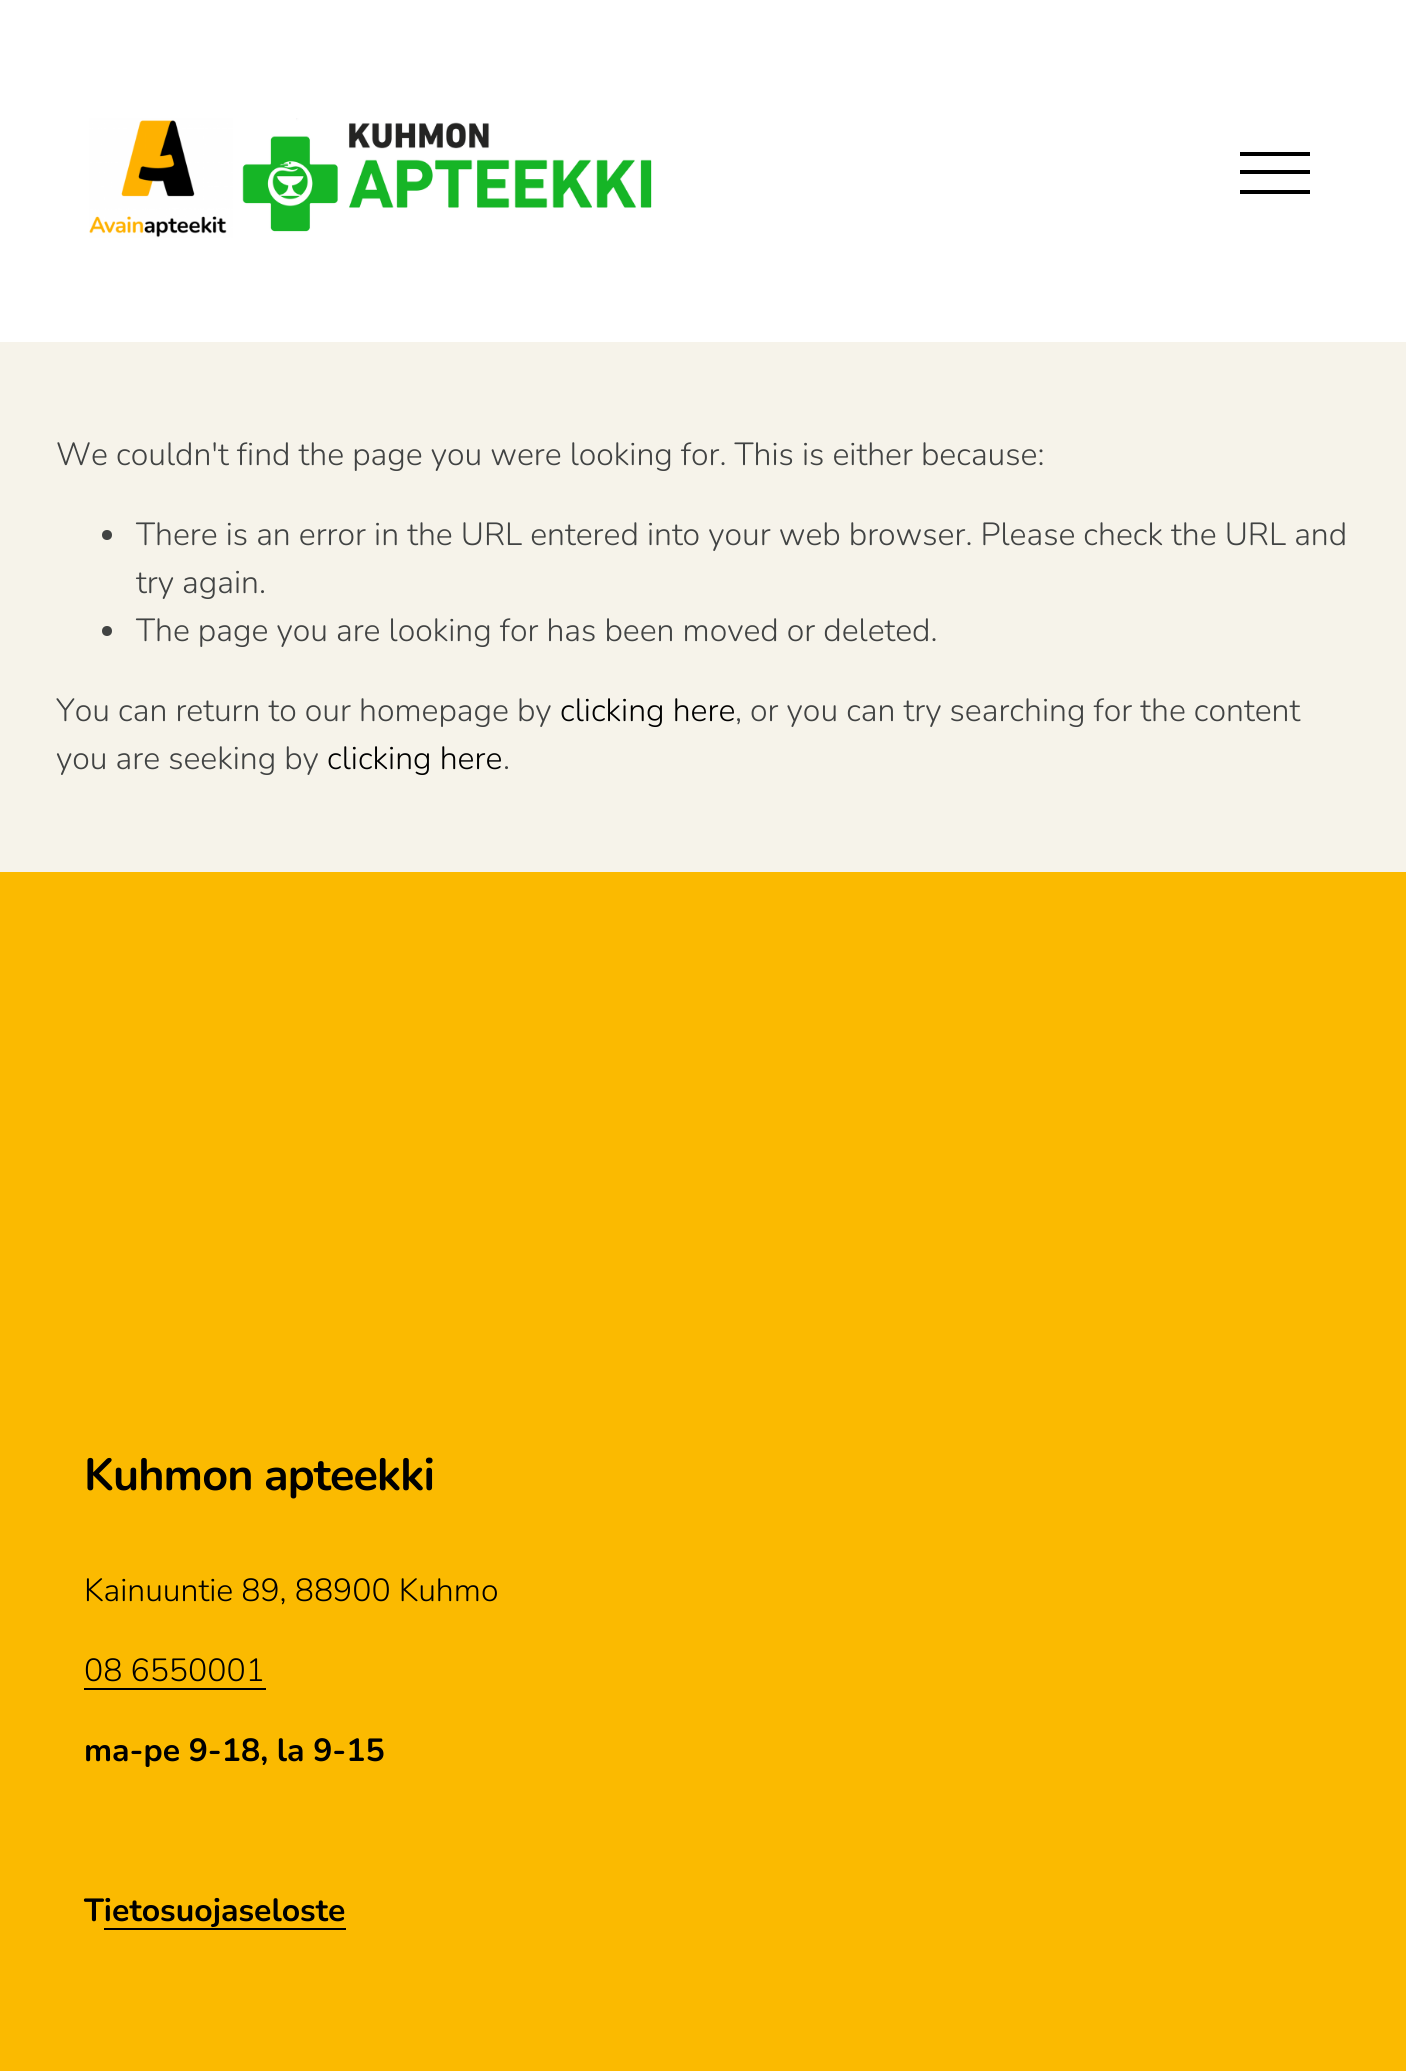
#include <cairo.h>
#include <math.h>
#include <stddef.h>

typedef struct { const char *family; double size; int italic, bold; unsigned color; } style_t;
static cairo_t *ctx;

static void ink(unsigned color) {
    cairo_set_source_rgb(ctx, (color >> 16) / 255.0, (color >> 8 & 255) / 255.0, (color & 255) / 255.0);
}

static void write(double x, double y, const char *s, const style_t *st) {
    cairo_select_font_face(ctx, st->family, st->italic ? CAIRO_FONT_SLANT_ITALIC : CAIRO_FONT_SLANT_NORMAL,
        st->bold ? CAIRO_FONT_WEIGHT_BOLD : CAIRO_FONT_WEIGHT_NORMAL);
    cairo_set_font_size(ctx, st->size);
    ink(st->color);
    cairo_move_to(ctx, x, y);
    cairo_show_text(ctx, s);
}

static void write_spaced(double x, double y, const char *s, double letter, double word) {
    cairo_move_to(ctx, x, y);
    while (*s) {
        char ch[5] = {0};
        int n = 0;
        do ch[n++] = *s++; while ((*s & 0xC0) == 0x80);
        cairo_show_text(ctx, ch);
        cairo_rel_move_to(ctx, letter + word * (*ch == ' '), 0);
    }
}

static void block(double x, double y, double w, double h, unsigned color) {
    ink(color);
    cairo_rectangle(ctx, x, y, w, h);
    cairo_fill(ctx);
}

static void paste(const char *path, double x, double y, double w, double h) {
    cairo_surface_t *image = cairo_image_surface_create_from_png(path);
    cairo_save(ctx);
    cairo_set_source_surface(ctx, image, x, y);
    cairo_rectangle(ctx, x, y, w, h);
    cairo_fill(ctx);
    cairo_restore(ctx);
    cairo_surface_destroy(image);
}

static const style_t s1 = {"Nunito Light", 32, 0, 0, 0x414343};
static const style_t s2 = {"Nunito Light", 32, 0, 0, 0x000000};
static const style_t s3 = {"Nunito", 32, 0, 1, 0x000000};

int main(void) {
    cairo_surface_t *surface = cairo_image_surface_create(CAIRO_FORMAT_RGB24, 1406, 2071);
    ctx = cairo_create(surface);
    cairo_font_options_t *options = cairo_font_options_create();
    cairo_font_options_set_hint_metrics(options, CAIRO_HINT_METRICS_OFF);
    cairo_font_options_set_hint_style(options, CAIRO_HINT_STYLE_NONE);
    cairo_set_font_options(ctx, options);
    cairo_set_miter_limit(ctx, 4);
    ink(0xf6f3ea);
    cairo_paint(ctx);
    block(0, 0, 1406, 342, 0xffffff);
    paste("pic1.png", 89, 118, 563, 120);
    block(1240, 152, 70, 4, 0x000000);
    block(1240, 170, 70, 4, 0x000000);
    block(1240, 190, 70, 4, 0x000000);
    write(56, 465, "We couldn't find the page you were looking for. This is either because:", &s1);
    cairo_new_path(ctx);
    cairo_arc(ctx, 107, 535, 5, 0, 2 * M_PI);
    cairo_fill(ctx);
    write(136, 545, "There is an error in the URL entered into your web browser. Please check the URL and", &s1);
    write(136, 593, "try again.", &s1);
    cairo_new_path(ctx);
    cairo_arc(ctx, 107, 631, 5, 0, 2 * M_PI);
    cairo_fill(ctx);
    write(136, 641, "The page you are looking for has been moved or deleted.", &s1);
    write(56, 721, "You can return to our homepage by", &s1);
    write(560, 721, "clicking here", &s2);
    write(735, 721, ", or you can try searching for the content", &s1);
    write(56, 769, "you are seeking by", &s1);
    write(327, 769, "clicking here", &s2);
    write(503, 769, ".", &s1);
    block(0, 872, 1406, 1199, 0xfbba00);
    cairo_select_font_face(ctx, "Nunito", CAIRO_FONT_SLANT_NORMAL, CAIRO_FONT_WEIGHT_BOLD);
    cairo_set_font_size(ctx, 45);
    ink(0x000000);
    write_spaced(84, 1490, "Kuhmon apteekki", -0.9, 0);
    write(84, 1601, "Kainuuntie 89, 88900 Kuhmo", &s2);
    write(84, 1681, "08 6550001", &s2);
    block(84, 1688, 182, 2, 0x000000);
    write(84, 1761, "ma-pe 9-18, la 9-15", &s3);
    write(84, 1921, "Tietosuojaseloste", &s3);
    block(104, 1928, 242, 2, 0x000000);
    cairo_surface_write_to_png(surface, "screenshot.png");
    cairo_font_options_destroy(options);
    cairo_destroy(ctx);
    cairo_surface_destroy(surface);
    return 0;
}
